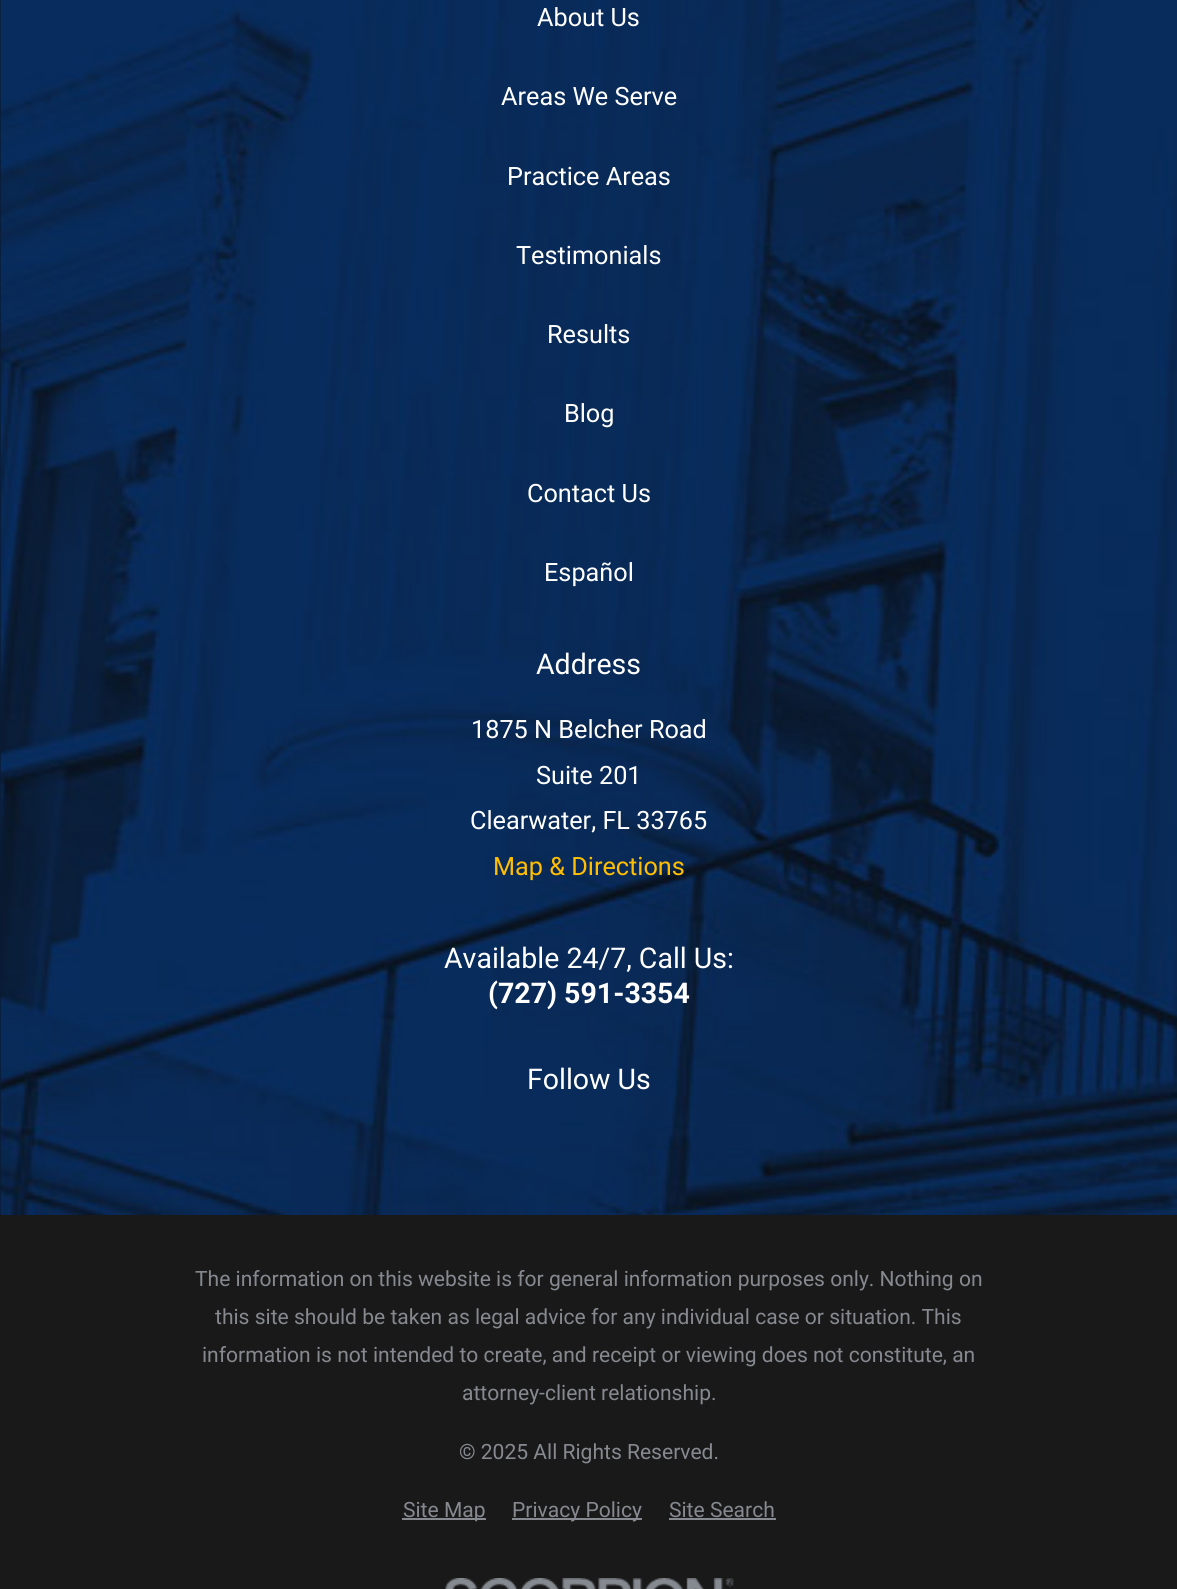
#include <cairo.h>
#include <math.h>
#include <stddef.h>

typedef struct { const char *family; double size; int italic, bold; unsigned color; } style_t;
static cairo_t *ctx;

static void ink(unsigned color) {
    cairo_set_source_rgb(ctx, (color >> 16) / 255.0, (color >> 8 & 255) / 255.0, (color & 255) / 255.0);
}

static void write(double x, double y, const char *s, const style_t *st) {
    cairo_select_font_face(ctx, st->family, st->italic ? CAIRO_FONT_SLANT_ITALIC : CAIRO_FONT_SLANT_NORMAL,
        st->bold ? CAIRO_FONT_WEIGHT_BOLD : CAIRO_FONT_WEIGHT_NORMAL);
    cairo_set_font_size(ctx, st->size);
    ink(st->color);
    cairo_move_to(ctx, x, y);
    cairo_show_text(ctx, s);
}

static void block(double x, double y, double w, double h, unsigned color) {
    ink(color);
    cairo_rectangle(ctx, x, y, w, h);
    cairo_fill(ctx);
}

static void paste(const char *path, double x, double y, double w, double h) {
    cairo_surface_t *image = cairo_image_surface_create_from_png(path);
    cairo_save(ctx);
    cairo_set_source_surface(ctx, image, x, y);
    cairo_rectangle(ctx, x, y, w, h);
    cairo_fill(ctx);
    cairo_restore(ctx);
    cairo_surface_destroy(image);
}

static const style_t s1 = {"Roboto", 25.25, 0, 0, 0xffffff};
static const style_t s2 = {"Roboto", 28.5, 0, 0, 0xffffff};
static const style_t s3 = {"Roboto", 25.25, 0, 0, 0xffbf00};
static const style_t s4 = {"Roboto", 28.5, 0, 1, 0xffffff};
static const style_t s5 = {"Roboto", 21.05, 0, 0, 0x86898f};

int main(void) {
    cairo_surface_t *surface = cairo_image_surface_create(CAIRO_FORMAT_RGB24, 1177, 1589);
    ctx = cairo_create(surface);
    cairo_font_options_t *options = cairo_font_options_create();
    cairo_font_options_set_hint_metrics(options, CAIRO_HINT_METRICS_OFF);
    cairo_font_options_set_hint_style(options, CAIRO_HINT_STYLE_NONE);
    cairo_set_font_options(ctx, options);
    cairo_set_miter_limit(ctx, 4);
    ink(0x091c36);
    cairo_paint(ctx);
    paste("pic1.png", 0, 0, 1177, 1215);
    write(537, 26, "About Us", &s1);
    write(501, 105, "Areas We Serve", &s1);
    write(507, 185, "Practice Areas", &s1);
    write(516, 264, "Testimonials", &s1);
    write(547, 343, "Results", &s1);
    write(564, 422, "Blog", &s1);
    write(527, 502, "Contact Us", &s1);
    write(544, 581, "Español", &s1);
    write(536, 674, "Address", &s2);
    write(471, 738, "1875 N Belcher Road", &s1);
    write(536, 784, "Suite 201", &s1);
    write(470, 829, "Clearwater, FL 33765", &s1);
    write(493, 875, "Map & Directions", &s3);
    write(444, 968, "Available 24/7, Call Us:", &s2);
    write(488, 1003, "(727) 591-3354", &s4);
    write(527, 1089, "Follow Us", &s2);
    block(0, 1215, 1177, 374, 0x191919);
    write(195, 1286, "The information on this website is for general information purposes only. Nothing on", &s5);
    write(215, 1324, "this site should be taken as legal advice for any individual case or situation. This", &s5);
    write(202, 1362, "information is not intended to create, and receipt or viewing does not constitute, an", &s5);
    write(462, 1400, "attorney-client relationship.", &s5);
    write(459, 1459, "© 2025 All Rights Reserved.", &s5);
    block(402, 1518, 84, 2, 0x86898f);
    write(403, 1517, "Site Map", &s5);
    block(512, 1518, 130, 2, 0x86898f);
    write(512, 1517, "Privacy Policy", &s5);
    write(669, 1517, "Site Search", &s5);
    block(669, 1518, 107, 2, 0x86898f);
    paste("pic2.png", 445, 1578, 289, 11);
    cairo_surface_write_to_png(surface, "screenshot.png");
    cairo_font_options_destroy(options);
    cairo_destroy(ctx);
    cairo_surface_destroy(surface);
    return 0;
}
